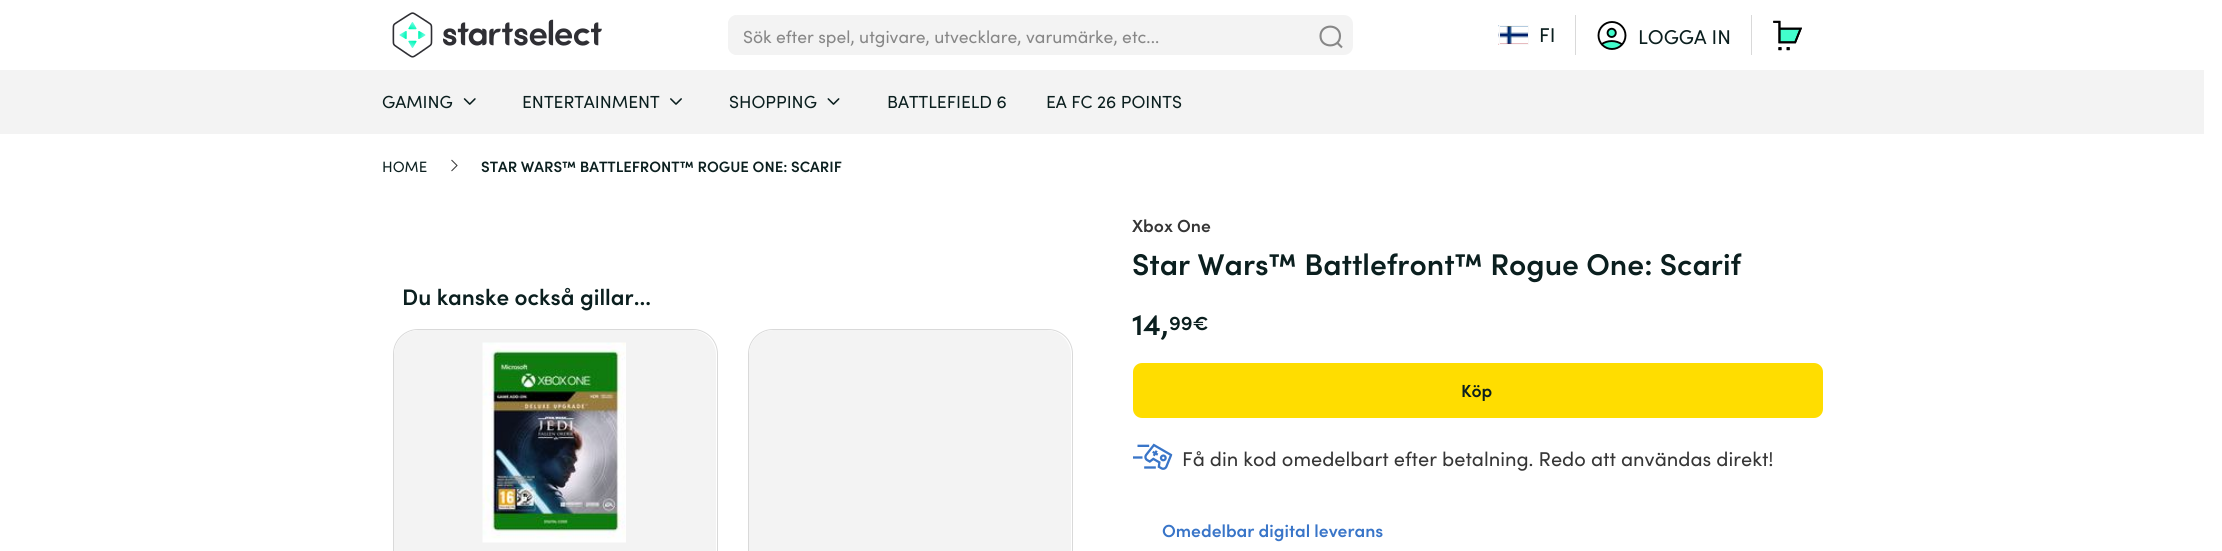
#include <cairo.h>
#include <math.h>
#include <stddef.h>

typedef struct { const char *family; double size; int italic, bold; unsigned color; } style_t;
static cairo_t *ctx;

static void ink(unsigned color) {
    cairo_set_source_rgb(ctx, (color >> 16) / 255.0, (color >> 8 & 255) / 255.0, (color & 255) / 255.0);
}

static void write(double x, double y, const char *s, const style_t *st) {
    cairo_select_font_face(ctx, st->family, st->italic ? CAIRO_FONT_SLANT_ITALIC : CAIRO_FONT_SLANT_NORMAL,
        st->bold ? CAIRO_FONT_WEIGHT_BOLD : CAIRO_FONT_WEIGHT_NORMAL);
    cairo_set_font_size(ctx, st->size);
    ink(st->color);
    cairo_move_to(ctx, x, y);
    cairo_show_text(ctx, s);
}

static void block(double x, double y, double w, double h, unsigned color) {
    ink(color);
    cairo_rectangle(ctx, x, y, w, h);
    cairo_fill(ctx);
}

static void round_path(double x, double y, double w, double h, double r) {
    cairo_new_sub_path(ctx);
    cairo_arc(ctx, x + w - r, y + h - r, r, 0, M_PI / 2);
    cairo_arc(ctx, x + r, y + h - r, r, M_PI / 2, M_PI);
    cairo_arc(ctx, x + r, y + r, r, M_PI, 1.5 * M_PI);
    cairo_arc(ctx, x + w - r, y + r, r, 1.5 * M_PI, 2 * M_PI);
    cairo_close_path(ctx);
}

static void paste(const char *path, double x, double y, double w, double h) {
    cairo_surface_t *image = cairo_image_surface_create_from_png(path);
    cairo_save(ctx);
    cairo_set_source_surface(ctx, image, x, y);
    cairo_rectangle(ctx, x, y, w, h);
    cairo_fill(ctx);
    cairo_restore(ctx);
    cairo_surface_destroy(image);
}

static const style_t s1 = {"Sofia", 17.5, 0, 0, 0x878787};
static const style_t s2 = {"Sofia", 20, 0, 0, 0x0b1f1f};
static const style_t s3 = {"Sofia", 17.5, 0, 0, 0x0b1f1f};
static const style_t s4 = {"Sofia", 15, 0, 0, 0x0b1f1f};
static const style_t s5 = {"Sofia SemiBold", 15, 0, 0, 0x0b1f1f};
static const style_t s6 = {"Sofia SemiBold", 17.5, 0, 0, 0x363636};
static const style_t s7 = {"Sofia SemiBold", 30, 0, 0, 0x0b1f1f};
static const style_t s8 = {"Sofia SemiBold", 22.5, 0, 0, 0x0b1f1f};
static const style_t s9 = {"Sofia SemiBold", 20, 0, 0, 0x0b1f1f};
static const style_t s10 = {"Sofia SemiBold", 17.5, 0, 0, 0x0b1f1f};
static const style_t s11 = {"Sofia", 20, 0, 0, 0x363636};
static const style_t s12 = {"Sofia SemiBold", 17.5, 0, 0, 0x3975c8};

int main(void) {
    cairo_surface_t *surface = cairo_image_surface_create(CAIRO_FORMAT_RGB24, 2222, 551);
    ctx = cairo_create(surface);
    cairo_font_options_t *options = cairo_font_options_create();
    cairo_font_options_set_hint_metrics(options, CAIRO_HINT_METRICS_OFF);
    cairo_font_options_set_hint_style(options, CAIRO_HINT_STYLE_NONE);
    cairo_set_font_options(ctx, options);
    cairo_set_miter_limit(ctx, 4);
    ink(0xffffff);
    cairo_paint(ctx);
    paste("pic1.png", 392, 12, 41, 46);
    paste("pic2.png", 443, 19, 159, 27);
    ink(0xf3f3f3);
    round_path(728, 15, 625, 40, 9);
    cairo_fill(ctx);
    round_path(728, 15, 591, 40, 9);
    cairo_fill(ctx);
    write(743, 43, "Sök efter spel, utgivare, utvecklare, varumärke, etc...", &s1);
    cairo_new_path(ctx);
    cairo_move_to(ctx, 1320.5, 36);
    cairo_curve_to(ctx, 1320.5, 48.5, 1340, 48.5, 1340, 36);
    cairo_curve_to(ctx, 1340, 23.5, 1320.5, 23.5, 1320.5, 36);
    cairo_close_path(ctx);
    cairo_move_to(ctx, 1337, 42.5);
    cairo_line_to(ctx, 1342, 47.5);
    cairo_set_line_width(ctx, 2.1);
    cairo_stroke(ctx);
    paste("pic3.png", 1498, 25, 30, 20);
    cairo_rectangle(ctx, 1499.5, 25.5, 29, 19);
    ink(0xf9f9f9);
    cairo_set_line_width(ctx, 1);
    cairo_stroke(ctx);
    write(1539, 42, "FI", &s2);
    block(1575, 15, 1, 40, 0xd9d9d9);
    paste("pic4.png", 1597, 21, 30, 29);
    write(1638, 44, "LOGGA IN", &s2);
    block(1751, 15, 1, 40, 0xd9d9d9);
    paste("pic5.png", 1773, 20, 29, 31);
    block(0, 70, 2204, 64, 0xf3f3f3);
    write(382, 108, "GAMING", &s3);
    paste("pic6.png", 463, 98, 13, 7);
    write(522, 108, "ENTERTAINMENT", &s3);
    paste("pic7.png", 670, 98, 12, 7);
    write(729, 108, "SHOPPING", &s3);
    paste("pic8.png", 827, 98, 13, 7);
    write(887, 108, "BATTLEFIELD 6", &s3);
    write(1046, 108, "EA FC 26 POINTS", &s3);
    write(382, 172, "HOME", &s4);
    cairo_new_path(ctx);
    cairo_move_to(ctx, 451.5, 160);
    cairo_line_to(ctx, 457, 165.5);
    cairo_line_to(ctx, 451.5, 171);
    ink(0x363636);
    cairo_stroke(ctx);
    write(481, 172, "STAR WARS™ BATTLEFRONT™ ROGUE ONE: SCARIF", &s5);
    write(1132, 232, "Xbox One", &s6);
    write(1132, 275, "Star Wars™ Battlefront™ Rogue One: Scarif", &s7);
    write(402, 305, "Du kanske också gillar...", &s8);
    round_path(393.5, 329.5, 324, 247, 24.5);
    ink(0xd9d9d9);
    cairo_stroke(ctx);
    cairo_save(ctx);
    round_path(394, 330, 322, 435, 24);
    cairo_clip(ctx);
    ink(0xf3f3f3);
    cairo_new_path(ctx);
    cairo_move_to(ctx, 419, 330);
    cairo_line_to(ctx, 691, 330);
    cairo_curve_to(ctx, 705, 330, 716, 341, 716, 355);
    cairo_line_to(ctx, 716, 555);
    cairo_line_to(ctx, 394, 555);
    cairo_line_to(ctx, 394, 355);
    cairo_curve_to(ctx, 394, 341, 405, 330, 419, 330);
    cairo_close_path(ctx);
    cairo_fill(ctx);
    cairo_restore(ctx);
    paste("pic9.png", 482, 342, 144, 201);
    round_path(748.5, 329.5, 324, 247, 24.5);
    cairo_stroke(ctx);
    cairo_save(ctx);
    round_path(749, 330, 322, 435, 24);
    cairo_clip(ctx);
    ink(0xf3f3f3);
    cairo_new_path(ctx);
    cairo_move_to(ctx, 774, 330);
    cairo_line_to(ctx, 1046, 330);
    cairo_curve_to(ctx, 1060, 330, 1071, 341, 1071, 355);
    cairo_line_to(ctx, 1071, 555);
    cairo_line_to(ctx, 749, 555);
    cairo_line_to(ctx, 749, 355);
    cairo_curve_to(ctx, 749, 341, 760, 330, 774, 330);
    cairo_close_path(ctx);
    cairo_fill(ctx);
    cairo_restore(ctx);
    write(1132, 335, "14,", &s7);
    write(1169, 330, "99€", &s9);
    ink(0xffdd00);
    round_path(1133, 363, 690, 55, 9);
    cairo_fill(ctx);
    write(1461, 397, "Köp", &s10);
    paste("pic10.png", 1133, 443, 40, 27);
    write(1182, 466, "Få din kod omedelbart efter betalning. Redo att användas direkt!", &s11);
    write(1162, 537, "Omedelbar digital leverans", &s12);
    cairo_surface_write_to_png(surface, "screenshot.png");
    cairo_font_options_destroy(options);
    cairo_destroy(ctx);
    cairo_surface_destroy(surface);
    return 0;
}
